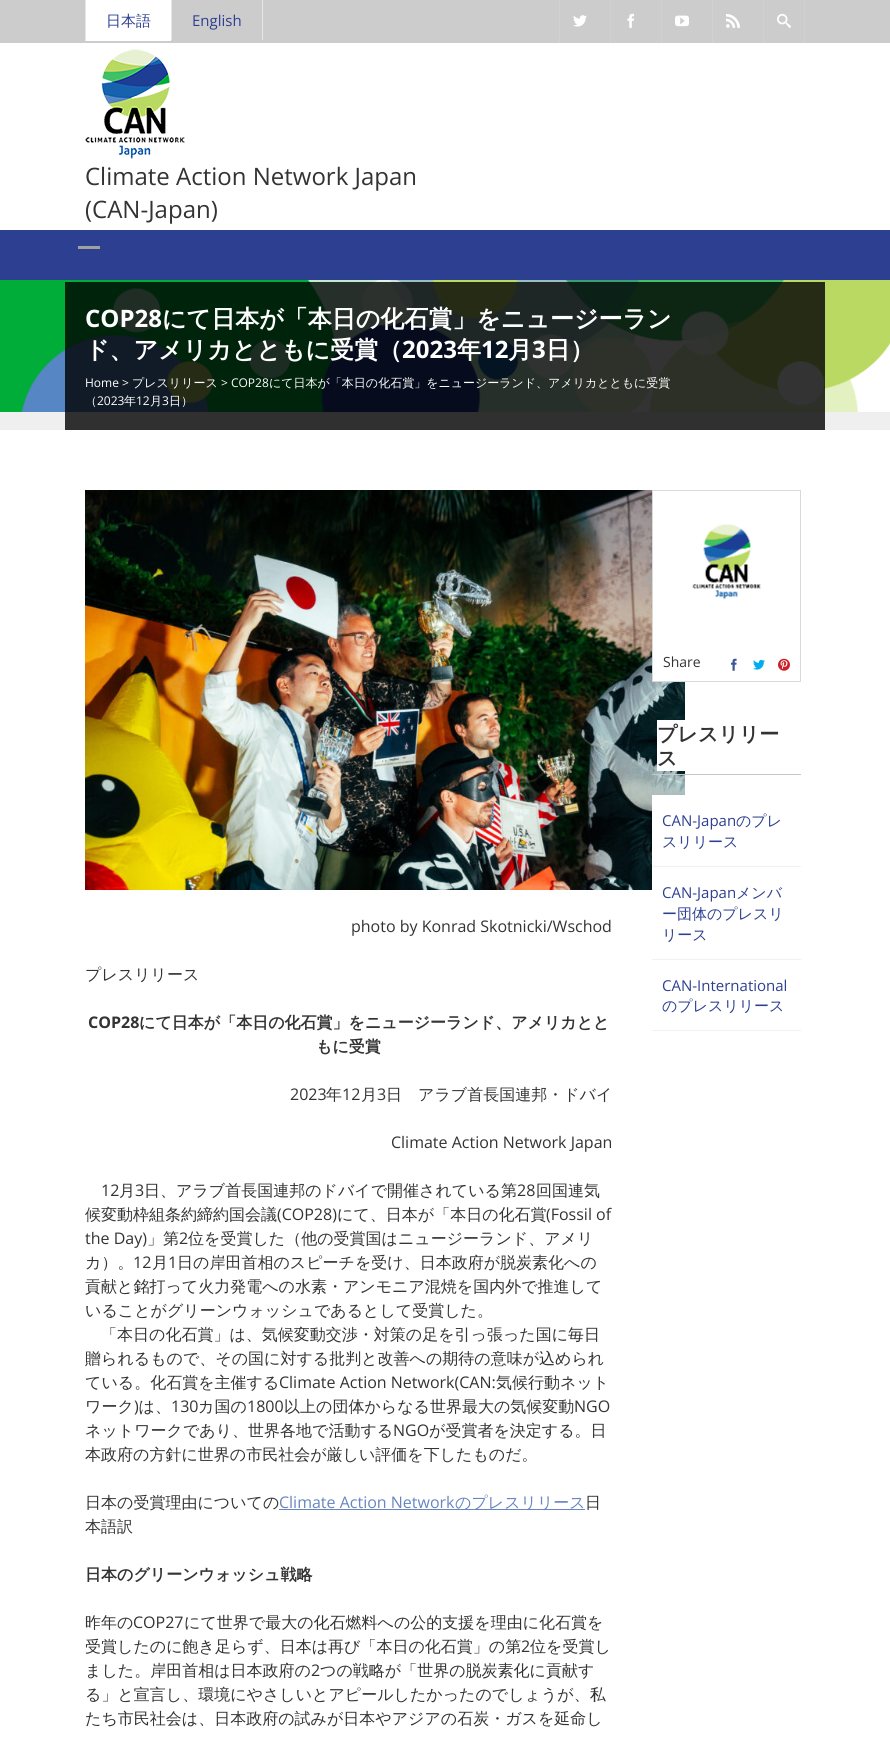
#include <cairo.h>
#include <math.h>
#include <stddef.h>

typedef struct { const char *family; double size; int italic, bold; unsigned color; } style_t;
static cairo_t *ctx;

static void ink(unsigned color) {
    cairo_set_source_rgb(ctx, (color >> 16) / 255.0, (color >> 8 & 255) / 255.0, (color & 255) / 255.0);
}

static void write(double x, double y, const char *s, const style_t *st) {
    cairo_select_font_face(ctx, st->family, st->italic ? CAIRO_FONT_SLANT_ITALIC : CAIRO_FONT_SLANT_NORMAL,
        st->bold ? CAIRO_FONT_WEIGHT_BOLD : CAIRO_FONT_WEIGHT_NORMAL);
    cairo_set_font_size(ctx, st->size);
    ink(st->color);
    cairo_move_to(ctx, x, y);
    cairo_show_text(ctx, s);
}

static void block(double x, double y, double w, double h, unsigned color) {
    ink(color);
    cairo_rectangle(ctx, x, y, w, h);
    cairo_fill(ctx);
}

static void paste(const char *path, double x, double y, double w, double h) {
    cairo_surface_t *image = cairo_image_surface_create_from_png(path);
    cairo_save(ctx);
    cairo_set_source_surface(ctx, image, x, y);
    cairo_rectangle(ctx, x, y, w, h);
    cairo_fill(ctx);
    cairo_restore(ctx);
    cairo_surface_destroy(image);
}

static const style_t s1 = {"WenQuanYi Zen Hei Medium", 15, 0, 0, 0x2d3f90};
static const style_t s2 = {"Open Sans", 15, 0, 0, 0x2d3f90};
static const style_t s3 = {"Open Sans", 24, 0, 0, 0x333333};
static const style_t s4 = {"Open Sans", 24, 0, 1, 0xffffff};
static const style_t s5 = {"WenQuanYi Zen Hei", 24, 0, 1, 0xffffff};
static const style_t s6 = {"Open Sans", 12, 0, 0, 0xffffff};
static const style_t s7 = {"WenQuanYi Zen Hei Medium", 12, 0, 0, 0xffffff};
static const style_t s8 = {"Open Sans", 14, 0, 0, 0x333333};
static const style_t s9 = {"WenQuanYi Zen Hei", 20, 0, 1, 0x333333};
static const style_t s10 = {"Open Sans", 16, 0, 0, 0x333333};
static const style_t s11 = {"WenQuanYi Zen Hei Medium", 16, 0, 0, 0x333333};
static const style_t s12 = {"Open Sans", 16, 0, 1, 0x333333};
static const style_t s13 = {"WenQuanYi Zen Hei", 16, 0, 1, 0x333333};
static const style_t s14 = {"Open Sans", 16, 0, 0, 0x6786c0};
static const style_t s15 = {"WenQuanYi Zen Hei Medium", 16, 0, 0, 0x6786c0};

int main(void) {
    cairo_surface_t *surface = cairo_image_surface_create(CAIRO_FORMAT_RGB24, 890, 1739);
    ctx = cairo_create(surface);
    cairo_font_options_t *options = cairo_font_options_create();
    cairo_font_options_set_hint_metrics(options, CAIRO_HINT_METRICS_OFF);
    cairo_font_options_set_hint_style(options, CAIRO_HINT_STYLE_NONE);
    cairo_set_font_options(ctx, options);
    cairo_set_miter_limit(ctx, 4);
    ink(0xffffff);
    cairo_paint(ctx);
    block(0, 0, 890, 43, 0xcccccc);
    block(85, 0, 1, 41, 0xe6e6e6);
    block(86, 0, 85, 41, 0xffffff);
    write(106, 26, "日本語", &s1);
    block(262, 0, 1, 40, 0xe6e6e6);
    block(171, 0, 1, 40, 0xe6e6e6);
    write(192, 26, "English", &s2);
    block(559, 0, 1, 43, 0xd1d1d1);
    paste("pic1.png", 573, 15, 14, 12);
    block(610, 0, 1, 43, 0xd1d1d1);
    paste("pic2.png", 627, 13, 7, 15);
    block(661, 0, 1, 43, 0xd1d1d1);
    paste("pic3.png", 675, 15, 14, 12);
    block(712, 0, 1, 43, 0xd1d1d1);
    paste("pic4.png", 726, 14, 14, 14);
    block(804, 0, 1, 43, 0xd1d1d1);
    block(763, 0, 1, 43, 0xd1d1d1);
    paste("pic5.png", 777, 13, 14, 15);
    paste("pic6.png", 85, 49, 100, 110);
    write(85, 185, "Climate Action Network Japan", &s3);
    write(85, 218, "(CAN-Japan)", &s3);
    block(0, 230, 890, 50, 0x2d3f90);
    block(78, 246, 22, 3, 0xa0a0a0);
    block(0, 412, 890, 18, 0xefefef);
    paste("pic7.png", 0, 280, 890, 132);
    cairo_set_source_rgba(ctx, 0, 0, 0, 0.8);
    cairo_rectangle(ctx, 65, 282, 760, 148);
    cairo_fill(ctx);
    write(85, 327, "COP28", &s4);
    write(162, 327, "にて日本が「本日の化石賞」をニュージーラン", &s5);
    write(85, 358, "ド、アメリカとともに受賞（", &s5);
    write(402, 358, "2023", &s4);
    write(457, 358, "年", &s5);
    write(481, 358, "12", &s4);
    write(508, 358, "月", &s5);
    write(532, 358, "3", &s4);
    write(546, 358, "日）", &s5);
    write(85, 387, "Home >", &s6);
    write(132, 387, "プレスリリース", &s7);
    write(221, 387, "> COP28", &s6);
    write(269, 387, "にて日本が「本日の化石賞」をニュージーランド、アメリカとともに受賞", &s7);
    write(85, 405, "（", &s7);
    write(97, 405, "2023", &s6);
    write(124, 405, "年", &s7);
    write(136, 405, "12", &s6);
    write(150, 405, "月", &s7);
    write(162, 405, "3", &s6);
    write(169, 405, "日）", &s7);
    paste("pic12.png", 85, 490, 600, 400);
    block(653, 491, 32, 190, 0xffffff);
    cairo_rectangle(ctx, 652.5, 490.5, 148, 191);
    ink(0xd9d9d9);
    cairo_set_line_width(ctx, 1);
    cairo_stroke(ctx);
    paste("pic8.png", 692, 524, 69, 76);
    write(663, 667, "Share", &s8);
    paste("pic9.png", 731, 658, 6, 13);
    paste("pic10.png", 753, 659, 12, 11);
    paste("pic11.png", 778, 658, 12, 13);
    block(652, 774, 149, 1, 0xc7c7c7);
    block(657, 720, 28, 51, 0xffffff);
    write(657, 741, "プレスリリー", &s9);
    write(657, 765, "ス", &s9);
    block(652, 795, 33, 95, 0xffffff);
    block(652, 866, 149, 1, 0xf1f1f1);
    write(662, 826, "CAN-Japan", &s2);
    write(736, 826, "のプレ", &s1);
    write(662, 847, "スリリース", &s1);
    block(652, 959, 149, 1, 0xf1f1f1);
    write(662, 898, "CAN-Japan", &s2);
    write(736, 898, "メンバ", &s1);
    write(662, 919, "ー団体のプレスリ", &s1);
    write(662, 940, "リース", &s1);
    block(652, 1030, 149, 1, 0xf1f1f1);
    write(662, 991, "CAN-International", &s2);
    write(662, 1011, "のプレスリリース", &s1);
    write(351, 932, "photo by Konrad Skotnicki/Wschod", &s10);
    write(85, 980, "プレスリリース", &s11);
    write(88, 1028, "COP28", &s12);
    write(139, 1028, "にて日本が「本日の化石賞」をニュージーランド、アメリカとと", &s13);
    write(316, 1052, "もに受賞", &s13);
    write(290, 1100, "2023", &s10);
    write(326, 1100, "年", &s11);
    write(342, 1100, "12", &s10);
    write(361, 1100, "月", &s11);
    write(377, 1100, "3", &s10);
    write(386, 1100, "日　アラブ首長国連邦・ドバイ", &s11);
    write(391, 1148, "Climate Action Network Japan", &s10);
    write(101, 1196, "12", &s10);
    write(119, 1196, "月", &s11);
    write(135, 1196, "3", &s10);
    write(144, 1196, "日、アラブ首長国連邦のドバイで開催されている第", &s11);
    write(517, 1196, "28", &s10);
    write(536, 1196, "回国連気", &s11);
    write(85, 1220, "候変動枠組条約締約国会議", &s11);
    write(277, 1220, "(COP28)", &s10);
    write(337, 1220, "にて、日本が「本日の化石賞", &s11);
    write(546, 1220, "(Fossil of", &s10);
    write(85, 1244, "the Day)", &s10);
    write(147, 1244, "」第", &s11);
    write(179, 1244, "2", &s10);
    write(188, 1244, "位を受賞した（他の受賞国はニュージーランド、アメリ", &s11);
    write(85, 1268, "カ）。", &s11);
    write(133, 1268, "12", &s10);
    write(152, 1268, "月", &s11);
    write(168, 1268, "1", &s10);
    write(177, 1268, "日の岸田首相のスピーチを受け、日本政府が脱炭素化への", &s11);
    write(85, 1292, "貢献と銘打って火力発電への水素・アンモニア混焼を国内外で推進して", &s11);
    write(85, 1316, "いることがグリーンウォッシュであるとして受賞した。", &s11);
    write(101, 1340, "「本日の化石賞」は、気候変動交渉・対策の足を引っ張った国に毎日", &s11);
    write(85, 1364, "贈られるもので、その国に対する批判と改善への期待の意味が込められ", &s11);
    write(85, 1388, "ている。化石賞を主催する", &s11);
    write(279, 1388, "Climate Action Network(CAN:", &s10);
    write(496, 1388, "気候行動ネット", &s11);
    write(85, 1412, "ワーク は、", &s11);
    write(198, 1412, "カ国の", &s11);
    write(284, 1412, "以上の団体からなる世界最大の気候変動", &s11);
    write(134, 1412, ")", &s10);
    write(171, 1412, "130", &s10);
    write(247, 1412, "1800", &s10);
    write(574, 1412, "NGO", &s10);
    write(85, 1436, "ネットワークであり、世界各地で活動する", &s11);
    write(393, 1436, "NGO", &s10);
    write(429, 1436, "が受賞者を決定する。日", &s11);
    write(85, 1460, "本政府の方針に世界の市民社会が厳しい評価を下したものだ。", &s11);
    write(85, 1508, "日本の受賞理由についての", &s11);
    write(279, 1508, "Climate Action Network", &s14);
    block(279, 1509, 306, 1, 0x6786c0);
    write(455, 1508, "のプレスリリース", &s15);
    write(585, 1508, "日", &s11);
    write(85, 1532, "本語訳", &s11);
    write(85, 1580, "日本のグリーンウォッシュ戦略", &s13);
    write(85, 1628, "昨年の", &s11);
    write(133, 1628, "COP27", &s10);
    write(184, 1628, "にて世界で最大の化石燃料への公的支援を理由に化石賞を", &s11);
    write(85, 1652, "受賞したのに飽き足らず、日本は再び「本日の化石賞」の第", &s11);
    write(521, 1652, "2", &s10);
    write(530, 1652, "位を受賞し", &s11);
    write(85, 1676, "ました。岸田首相は日本政府の", &s11);
    write(311, 1676, "2", &s10);
    write(320, 1676, "つの戦略が「世界の脱炭素化に貢献す", &s11);
    write(85, 1700, "る」と宣言し、環境にやさしいとアピールしたかったのでしょうが、私", &s11);
    write(85, 1724, "たち市民社会は、日本政府の試みが日本やアジアの石炭・ガスを延命し", &s11);
    cairo_surface_write_to_png(surface, "screenshot.png");
    cairo_font_options_destroy(options);
    cairo_destroy(ctx);
    cairo_surface_destroy(surface);
    return 0;
}
